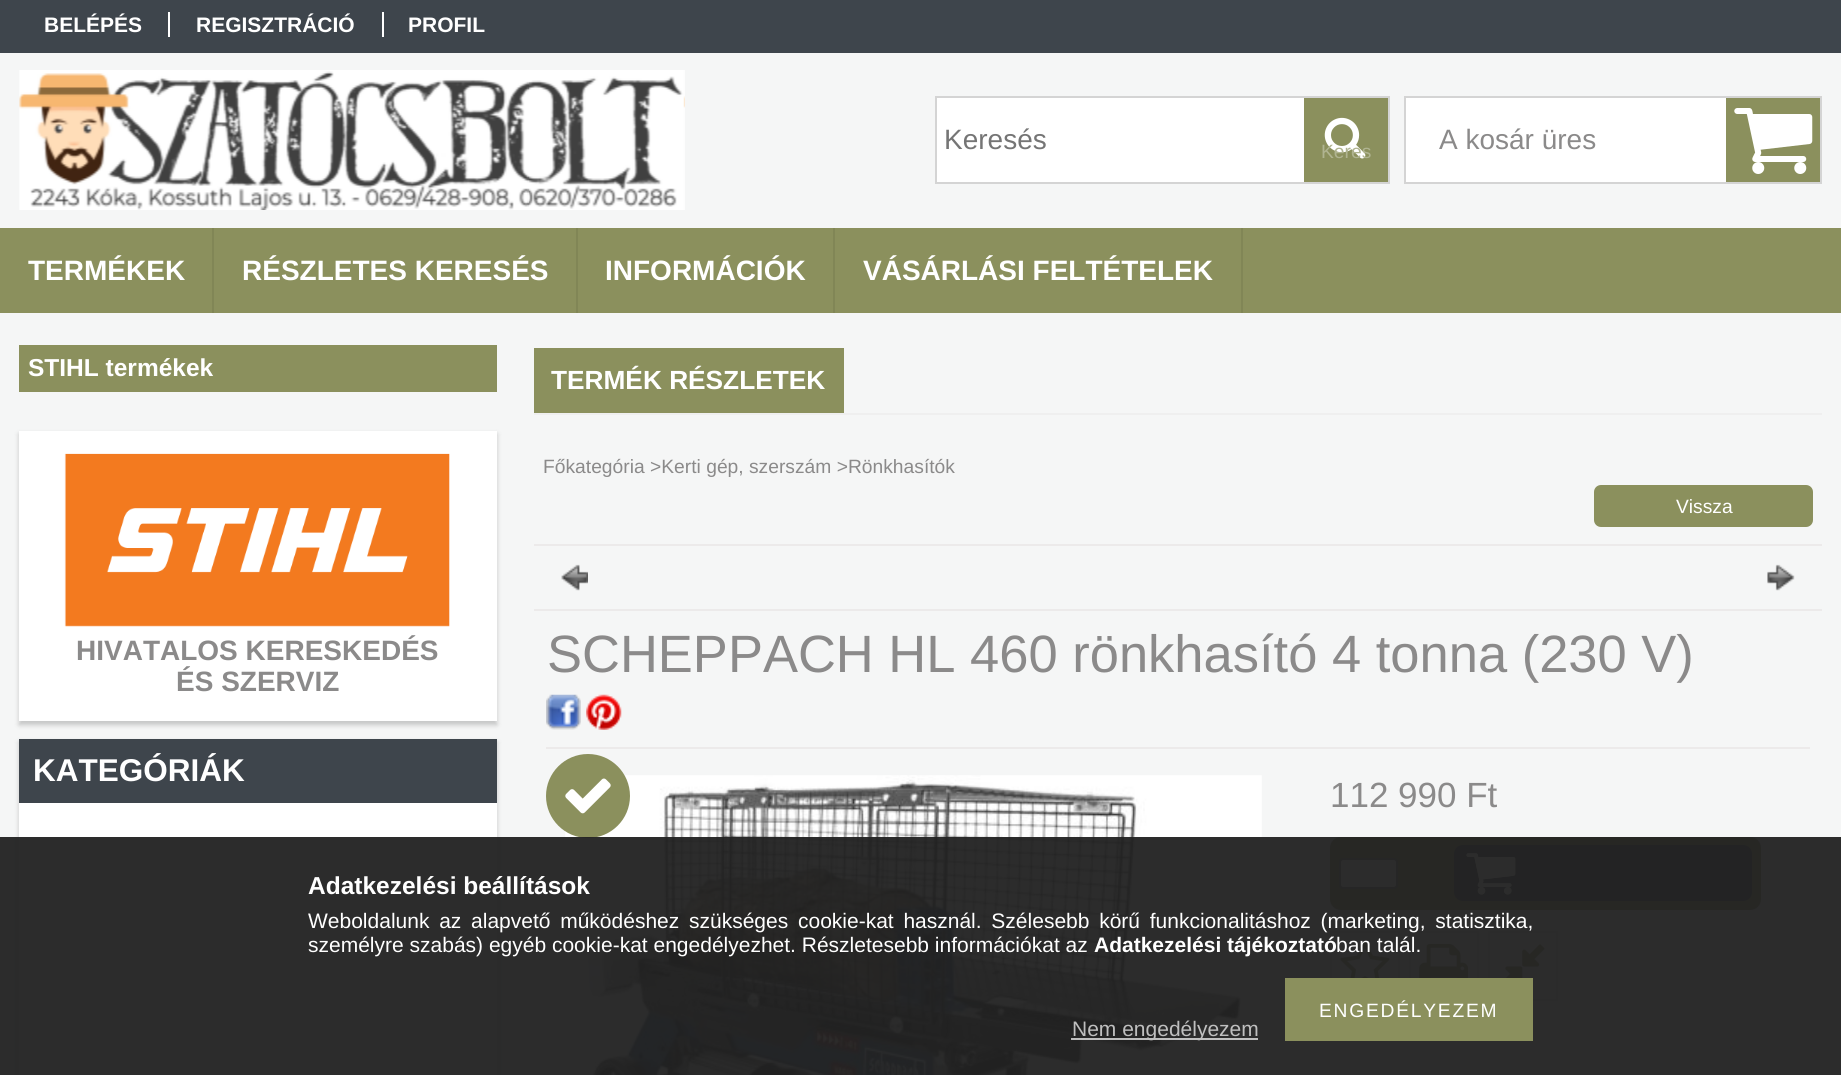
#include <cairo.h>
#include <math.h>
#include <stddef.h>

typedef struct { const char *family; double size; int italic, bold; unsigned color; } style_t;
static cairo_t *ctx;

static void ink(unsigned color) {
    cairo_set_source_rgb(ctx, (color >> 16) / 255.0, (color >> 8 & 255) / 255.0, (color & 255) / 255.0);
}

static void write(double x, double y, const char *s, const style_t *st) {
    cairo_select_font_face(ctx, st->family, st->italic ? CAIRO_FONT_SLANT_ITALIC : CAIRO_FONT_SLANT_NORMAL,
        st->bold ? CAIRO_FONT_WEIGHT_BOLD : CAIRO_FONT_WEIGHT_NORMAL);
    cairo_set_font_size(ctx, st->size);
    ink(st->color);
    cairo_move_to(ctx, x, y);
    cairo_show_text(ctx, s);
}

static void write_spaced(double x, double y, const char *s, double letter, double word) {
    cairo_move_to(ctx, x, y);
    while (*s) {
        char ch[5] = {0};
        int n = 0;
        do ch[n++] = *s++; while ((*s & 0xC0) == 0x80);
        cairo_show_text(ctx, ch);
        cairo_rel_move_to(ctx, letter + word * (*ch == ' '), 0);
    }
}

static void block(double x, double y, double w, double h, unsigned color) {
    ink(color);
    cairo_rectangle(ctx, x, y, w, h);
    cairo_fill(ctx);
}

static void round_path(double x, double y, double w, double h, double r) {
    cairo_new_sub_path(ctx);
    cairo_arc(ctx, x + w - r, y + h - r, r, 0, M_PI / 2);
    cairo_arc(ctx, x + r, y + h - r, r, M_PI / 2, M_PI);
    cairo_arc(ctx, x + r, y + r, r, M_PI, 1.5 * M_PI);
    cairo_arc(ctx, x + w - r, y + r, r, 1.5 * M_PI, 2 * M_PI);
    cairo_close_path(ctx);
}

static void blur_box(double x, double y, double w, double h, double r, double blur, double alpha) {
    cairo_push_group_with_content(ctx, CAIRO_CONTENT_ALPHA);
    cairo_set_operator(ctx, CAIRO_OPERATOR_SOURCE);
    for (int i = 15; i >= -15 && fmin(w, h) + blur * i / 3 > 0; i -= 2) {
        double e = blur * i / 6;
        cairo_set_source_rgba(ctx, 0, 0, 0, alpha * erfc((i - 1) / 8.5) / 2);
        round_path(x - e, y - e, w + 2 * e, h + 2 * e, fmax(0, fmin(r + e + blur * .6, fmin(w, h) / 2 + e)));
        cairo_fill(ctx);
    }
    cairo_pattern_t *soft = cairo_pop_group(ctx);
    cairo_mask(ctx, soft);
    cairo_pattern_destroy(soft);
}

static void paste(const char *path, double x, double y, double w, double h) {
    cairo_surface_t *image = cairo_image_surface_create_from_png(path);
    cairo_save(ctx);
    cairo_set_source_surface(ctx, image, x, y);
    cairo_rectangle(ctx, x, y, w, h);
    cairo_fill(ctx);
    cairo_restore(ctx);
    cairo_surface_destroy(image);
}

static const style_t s1 = {"Liberation Sans", 21, 0, 1, 0xffffff};
static const style_t s2 = {"Liberation Sans", 28, 0, 0, 0x757575};
static const style_t s3 = {"Liberation Sans", 19.25, 0, 0, 0xb0b491};
static const style_t s4 = {"Liberation Sans", 28, 0, 0, 0x8b8a8a};
static const style_t s5 = {"Liberation Sans", 28, 0, 1, 0xffffff};
static const style_t s6 = {"Liberation Sans", 24.5, 0, 1, 0xffffff};
static const style_t s7 = {"Liberation Sans", 28, 0, 1, 0x8b8a8a};
static const style_t s8 = {"Liberation Sans", 31.5, 0, 1, 0xffffff};
static const style_t s9 = {"Liberation Sans", 26.25, 0, 1, 0xffffff};
static const style_t s10 = {"Liberation Sans", 19.25, 0, 0, 0x8b8a8a};
static const style_t s11 = {"Liberation Sans", 19.25, 0, 0, 0xffffff};
static const style_t s12 = {"Liberation Sans", 52.5, 0, 0, 0x8b8a8a};
static const style_t s13 = {"Liberation Sans", 35, 0, 0, 0x8b8a8a};
static const style_t s14 = {"Liberation Sans", 21, 0, 0, 0xffffff};
static const style_t s15 = {"Liberation Sans", 21, 0, 0, 0xbfbfbf};

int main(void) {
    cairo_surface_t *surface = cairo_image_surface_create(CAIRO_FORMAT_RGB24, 1841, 1075);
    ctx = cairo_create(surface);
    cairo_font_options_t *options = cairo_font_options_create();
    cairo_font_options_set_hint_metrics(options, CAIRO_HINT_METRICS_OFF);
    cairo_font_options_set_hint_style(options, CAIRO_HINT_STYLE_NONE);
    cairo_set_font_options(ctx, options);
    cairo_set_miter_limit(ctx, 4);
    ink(0xf5f6f6);
    cairo_paint(ctx);
    block(0, 0, 1841, 53, 0x3e454c);
    write(44, 32, "BELÉPÉS", &s1);
    block(168, 12, 2, 25, 0xffffff);
    write(196, 32, "REGISZTRÁCIÓ", &s1);
    block(382, 12, 2, 25, 0xffffff);
    write(408, 32, "PROFIL", &s1);
    paste("pic1.png", 19, 70, 666, 140);
    paste("pic2.png", 683, 96, 2, 12);
    block(937, 98, 367, 84, 0xffffff);
    cairo_rectangle(ctx, 936, 97, 453, 86);
    ink(0xd4d4d4);
    cairo_stroke(ctx);
    write(944, 149, "Keresés", &s2);
    block(1304, 98, 84, 84, 0x8b905d);
    paste("pic3.png", 1324, 117, 42, 42);
    write(1321, 158, "Keres", &s3);
    block(1406, 98, 320, 84, 0xffffff);
    cairo_rectangle(ctx, 1405, 97, 416, 86);
    ink(0xd4d4d4);
    cairo_stroke(ctx);
    write(1439, 149, "A kosár üres", &s4);
    block(1726, 98, 94, 84, 0x8b905d);
    paste("pic4.png", 1734, 108, 79, 66);
    block(0, 228, 1841, 85, 0x8b905d);
    block(212, 228, 2, 85, 0x818656);
    write(28, 280, "TERMÉKEK", &s5);
    block(576, 228, 2, 85, 0x818656);
    write(242, 280, "RÉSZLETES KERESÉS", &s5);
    block(833, 228, 2, 85, 0x818656);
    write(605, 280, "INFORMÁCIÓK", &s5);
    block(1241, 228, 2, 85, 0x818656);
    write(863, 280, "VÁSÁRLÁSI FELTÉTELEK", &s5);
    block(19, 345, 478, 47, 0x8b905d);
    write(28, 376, "STIHL termékek", &s6);
    ink(0x000000);
    blur_box(19, 434, 478, 291, 0, 2.5, 0.2);
    block(19, 431, 478, 290, 0xffffff);
    paste("pic5.png", 64, 453, 386, 174);
    write(76, 660, "HIVATALOS KERESKEDÉS", &s7);
    write(176, 691, "ÉS SZERVIZ", &s7);
    ink(0x000000);
    blur_box(19, 742, 478, 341, 0, 2.5, 0.2);
    block(19, 739, 478, 64, 0x3e454c);
    write(33, 781, "KATEGÓRIÁK", &s8);
    block(19, 803, 478, 272, 0xffffff);
    block(534, 413, 1288, 2, 0xefefef);
    block(534, 348, 310, 65, 0x8b905d);
    write(551, 389, "TERMÉK RÉSZLETEK", &s9);
    write(543, 473, "Főkategória >Kerti gép, szerszám >Rönkhasítók", &s10);
    ink(0x8b905d);
    round_path(1594, 485, 219, 42, 7);
    cairo_fill(ctx);
    write(1676, 513, "Vissza", &s11);
    block(534, 544, 1288, 2, 0xeceaea);
    paste("pic6.png", 561, 564, 27, 27);
    paste("pic7.png", 1767, 564, 28, 27);
    block(534, 609, 1288, 2, 0xeceaea);
    block(546, 747, 1264, 2, 0xeceaea);
    write(547, 672, "SCHEPPACH HL 460 rönkhasító 4 tonna (230 V)", &s12);
    paste("pic8.png", 546, 694, 35, 36);
    paste("pic9.png", 586, 694, 36, 36);
    paste("pic11.png", 565, 775, 697, 300);
    ink(0x8b905d);
    cairo_arc(ctx, 588, 796, 42, 0, 2 * M_PI);
    cairo_fill(ctx);
    paste("pic10.png", 565, 778, 46, 36);
    write(1330, 807, "112 990 Ft", &s13);
    ink(0x8b905d);
    round_path(1330, 837, 431, 73, 11);
    cairo_fill(ctx);
    ink(0xffffff);
    round_path(1340, 859, 57, 29, 3);
    cairo_fill_preserve(ctx);
    ink(0x767676);
    cairo_stroke(ctx);
    ink(0x3e454c);
    round_path(1454, 845, 298, 56, 9);
    cairo_fill(ctx);
    paste("pic13.png", 1466, 853, 50, 42);
    paste("pic12.png", 1466, 853, 50, 42);
    cairo_rectangle(ctx, 1331, 932, 68, 68);
    ink(0xeaeaea);
    cairo_stroke(ctx);
    paste("pic14.png", 1340, 941, 50, 37);
    cairo_rectangle(ctx, 1410, 932, 68, 68);
    cairo_stroke(ctx);
    paste("pic15.png", 1419, 944, 49, 34);
    cairo_rectangle(ctx, 1489, 932, 68, 68);
    cairo_stroke(ctx);
    paste("pic16.png", 1505, 944, 40, 34);
    cairo_set_source_rgba(ctx, 0.133, 0.133, 0.133, 0.95);
    cairo_rectangle(ctx, 0, 837, 1841, 238);
    cairo_fill(ctx);
    write(308, 894, "Adatkezelési beállítások", &s6);
    cairo_select_font_face(ctx, "Liberation Sans", CAIRO_FONT_SLANT_NORMAL, CAIRO_FONT_WEIGHT_NORMAL);
    cairo_set_font_size(ctx, 21);
    write_spaced(308, 928, "Weboldalunk az alapvető működéshez szükséges cookie-kat használ. Szélesebb körű funkcionalitáshoz (marketing, statisztika,", 0, 3.9);
    write(308, 952, "személyre szabás) egyéb cookie-kat engedélyezhet. Részletesebb információkat az", &s14);
    write(1094, 952, "Adatkezelési tájékoztató", &s1);
    write(1336, 952, "ban talál.", &s14);
    block(1285, 978, 248, 63, 0x8b905d);
    cairo_set_font_size(ctx, 19.25);
    ink(0xffffff);
    write_spaced(1319, 1017, "ENGEDÉLYEZEM", 1.75, 0);
    cairo_set_source_rgba(ctx, 1, 1, 1, 0.7);
    cairo_rectangle(ctx, 1071, 1038, 187, 2);
    cairo_fill(ctx);
    write(1072, 1036, "Nem engedélyezem", &s15);
    cairo_surface_write_to_png(surface, "screenshot.png");
    cairo_font_options_destroy(options);
    cairo_destroy(ctx);
    cairo_surface_destroy(surface);
    return 0;
}
